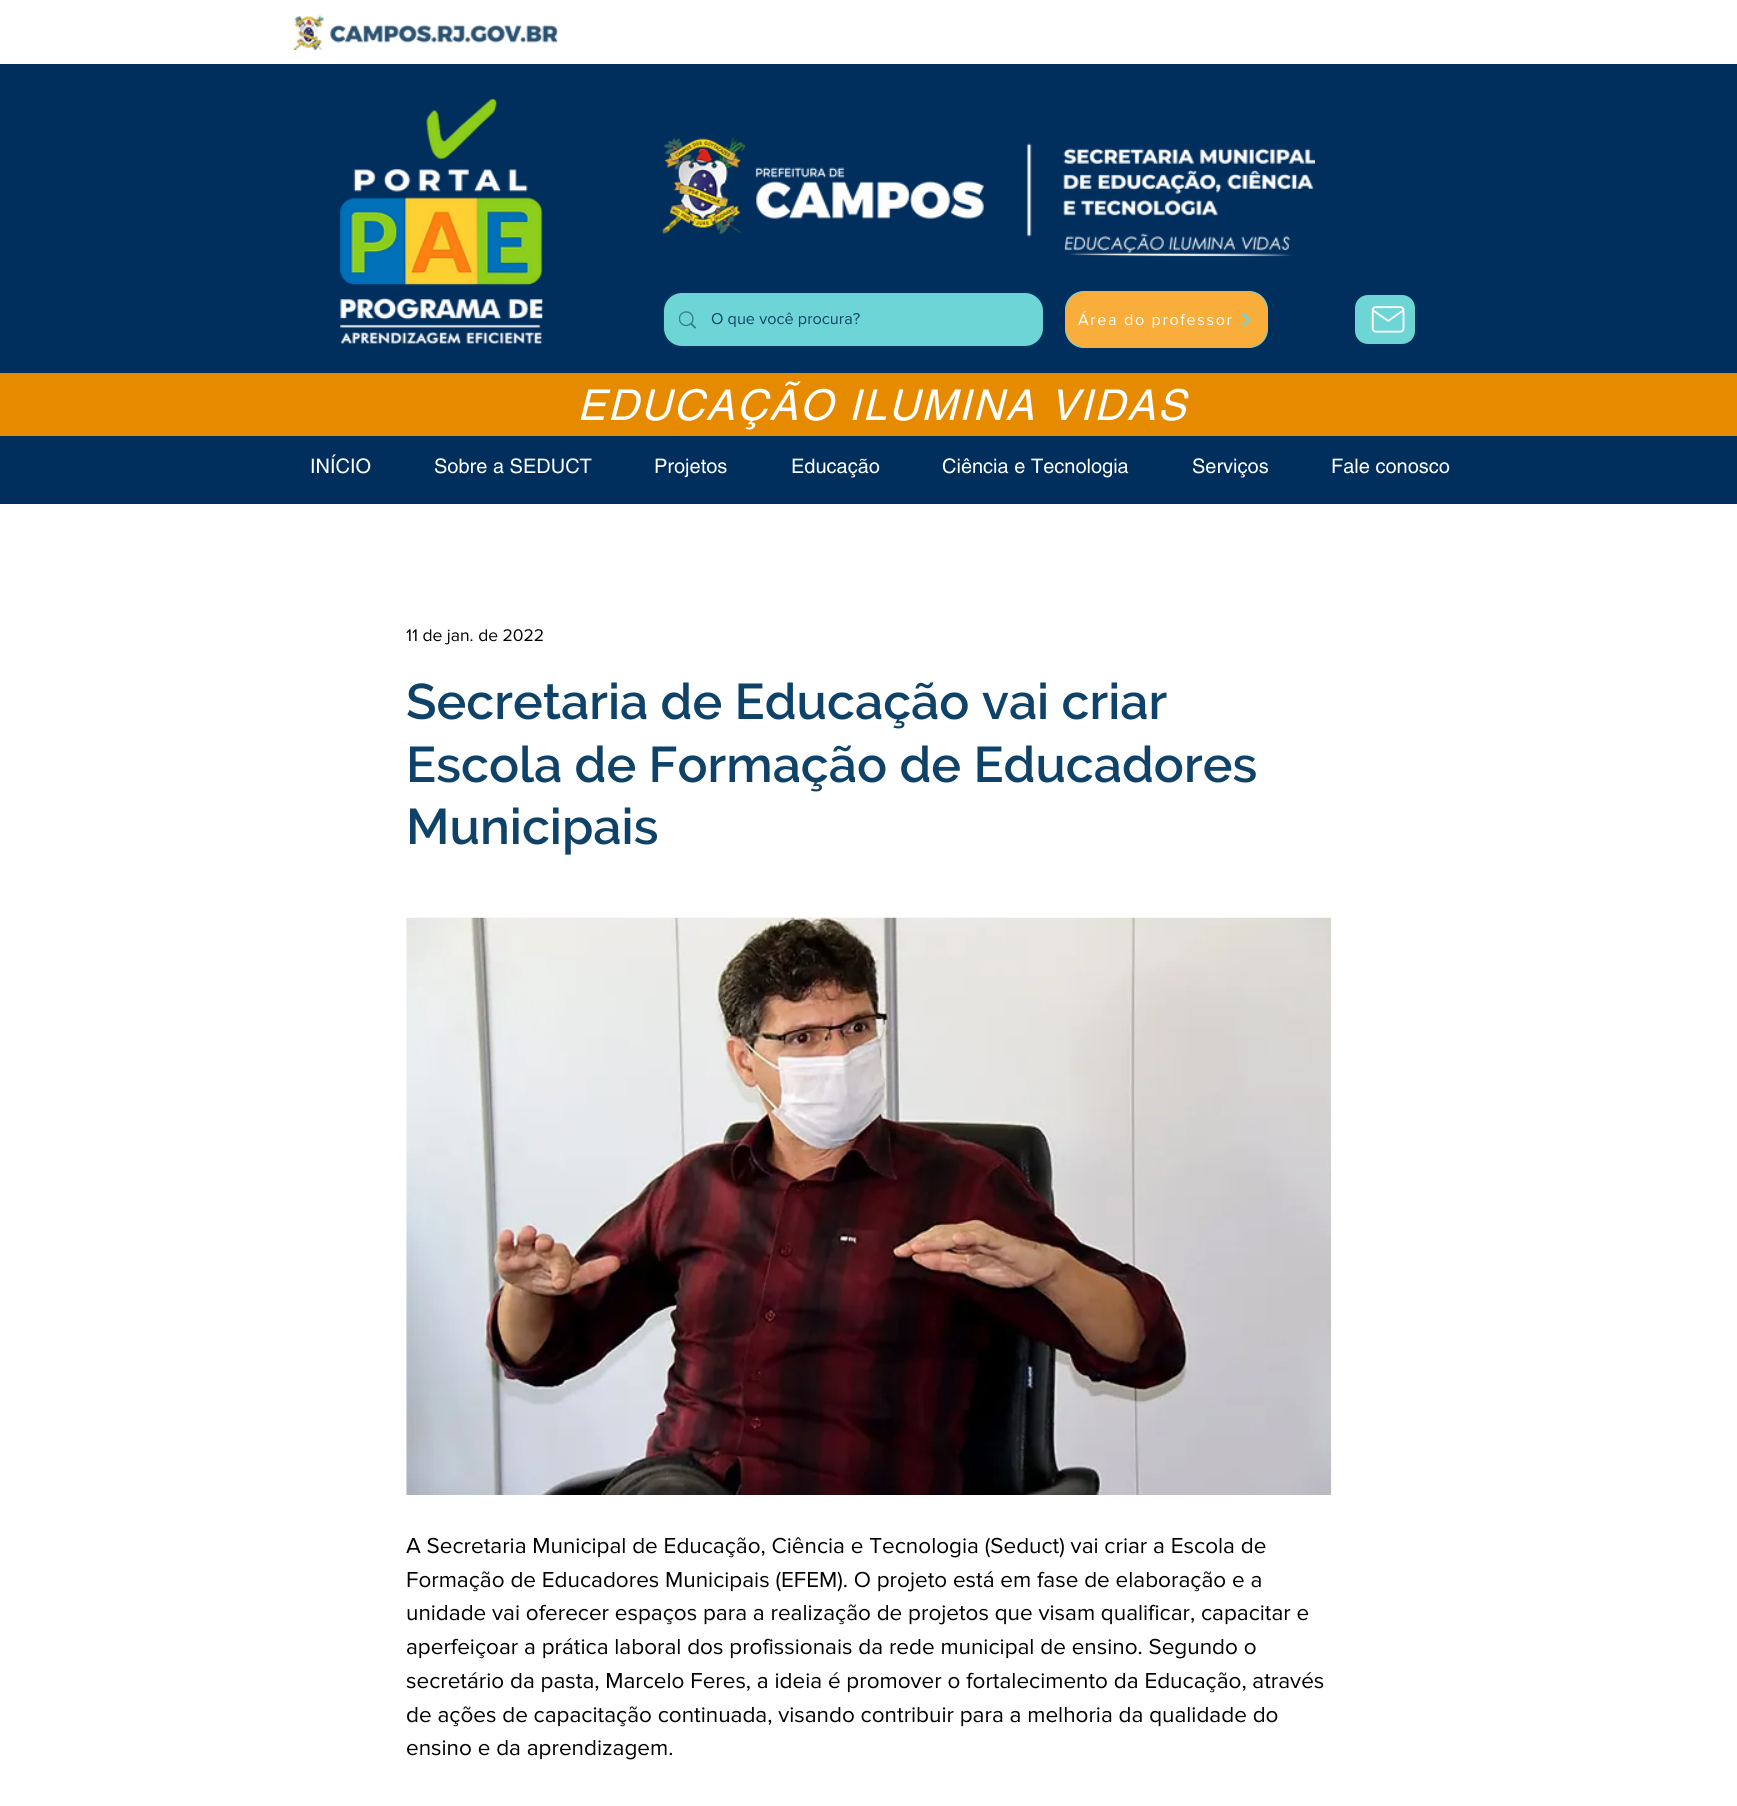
#include <cairo.h>
#include <math.h>
#include <stddef.h>

typedef struct { const char *family; double size; int italic, bold; unsigned color; } style_t;
static cairo_t *ctx;

static void ink(unsigned color) {
    cairo_set_source_rgb(ctx, (color >> 16) / 255.0, (color >> 8 & 255) / 255.0, (color & 255) / 255.0);
}

static void write(double x, double y, const char *s, const style_t *st) {
    cairo_select_font_face(ctx, st->family, st->italic ? CAIRO_FONT_SLANT_ITALIC : CAIRO_FONT_SLANT_NORMAL,
        st->bold ? CAIRO_FONT_WEIGHT_BOLD : CAIRO_FONT_WEIGHT_NORMAL);
    cairo_set_font_size(ctx, st->size);
    ink(st->color);
    cairo_move_to(ctx, x, y);
    cairo_show_text(ctx, s);
}

static void write_spaced(double x, double y, const char *s, double letter, double word) {
    cairo_move_to(ctx, x, y);
    while (*s) {
        char ch[5] = {0};
        int n = 0;
        do ch[n++] = *s++; while ((*s & 0xC0) == 0x80);
        cairo_show_text(ctx, ch);
        cairo_rel_move_to(ctx, letter + word * (*ch == ' '), 0);
    }
}

static void block(double x, double y, double w, double h, unsigned color) {
    ink(color);
    cairo_rectangle(ctx, x, y, w, h);
    cairo_fill(ctx);
}

static void round_path(double x, double y, double w, double h, double r) {
    cairo_new_sub_path(ctx);
    cairo_arc(ctx, x + w - r, y + h - r, r, 0, M_PI / 2);
    cairo_arc(ctx, x + r, y + h - r, r, M_PI / 2, M_PI);
    cairo_arc(ctx, x + r, y + r, r, M_PI, 1.5 * M_PI);
    cairo_arc(ctx, x + w - r, y + r, r, 1.5 * M_PI, 2 * M_PI);
    cairo_close_path(ctx);
}

static void paste(const char *path, double x, double y, double w, double h) {
    cairo_surface_t *image = cairo_image_surface_create_from_png(path);
    cairo_save(ctx);
    cairo_set_source_surface(ctx, image, x, y);
    cairo_rectangle(ctx, x, y, w, h);
    cairo_fill(ctx);
    cairo_restore(ctx);
    cairo_surface_destroy(image);
}

static const style_t s1 = {"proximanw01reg", 16.25, 0, 0, 0x0e4268};
static const style_t s2 = {"helvetica", 20, 0, 0, 0xffffff};
static const style_t s3 = {"proximanw01reg", 17.5, 0, 0, 0x000000};
static const style_t s4 = {"Raleway SemiBold", 50, 0, 0, 0x0e4268};
static const style_t s5 = {"proximanw01reg", 22.5, 0, 0, 0x000000};

int main(void) {
    cairo_surface_t *surface = cairo_image_surface_create(CAIRO_FORMAT_RGB24, 1737, 1806);
    ctx = cairo_create(surface);
    cairo_font_options_t *options = cairo_font_options_create();
    cairo_font_options_set_hint_metrics(options, CAIRO_HINT_METRICS_OFF);
    cairo_font_options_set_hint_style(options, CAIRO_HINT_STYLE_NONE);
    cairo_set_font_options(ctx, options);
    cairo_set_miter_limit(ctx, 4);
    ink(0xffffff);
    cairo_paint(ctx);
    block(0, 64, 1737, 440, 0x002e5d);
    paste("pic1.png", 293, 15, 265, 35);
    paste("pic2.png", 340, 98, 203, 246);
    paste("pic3.png", 662, 135, 653, 122);
    round_path(663.5, 291.5, 380, 56, 18.5);
    ink(0x083a64);
    cairo_set_line_width(ctx, 1);
    cairo_stroke(ctx);
    ink(0x6ed5d7);
    round_path(664, 293, 379, 53, 18);
    cairo_fill(ctx);
    paste("pic4.png", 679, 311, 17, 18);
    write(711, 324, "O que você procura?", &s1);
    ink(0xf9ad3b);
    round_path(1065.5, 291.5, 202, 56, 18.5);
    cairo_fill_preserve(ctx);
    ink(0x6ed5d7);
    cairo_stroke(ctx);
    ink(0xffffff);
    write_spaced(1078, 325, "Área do professor", 1.6, 0);
    paste("pic5.png", 1242, 313, 9, 14);
    ink(0x6ed5d7);
    round_path(1355, 295, 60, 49, 13);
    cairo_fill(ctx);
    paste("pic6.png", 1371, 306, 34, 27);
    block(0, 373, 1737, 63, 0xe68a00);
    cairo_select_font_face(ctx, "helvetica", CAIRO_FONT_SLANT_ITALIC, CAIRO_FONT_WEIGHT_NORMAL);
    cairo_set_font_size(ctx, 42.5);
    ink(0xffffff);
    write_spaced(577, 420, "EDUCAÇÃO ILUMINA VIDAS", 2.1, 0);
    write(310, 473, "INÍCIO", &s2);
    write(434, 473, "Sobre a SEDUCT", &s2);
    write(654, 473, "Projetos", &s2);
    write(791, 473, "Educação", &s2);
    write(942, 473, "Ciência e Tecnologia", &s2);
    write(1192, 473, "Serviços", &s2);
    write(1331, 473, "Fale conosco", &s2);
    write(406, 641, "11 de jan. de 2022", &s3);
    write(406, 719, "Secretaria de Educação vai criar", &s4);
    write(406, 782, "Escola de Formação de Educadores", &s4);
    write(406, 844, "Municipais", &s4);
    paste("pic7.png", 406, 917, 926, 578);
    write(406, 1553, "A Secretaria Municipal de Educação, Ciência e Tecnologia (Seduct) vai criar a Escola de", &s5);
    write(406, 1587, "Formação de Educadores Municipais (EFEM). O projeto está em fase de elaboração e a", &s5);
    write(406, 1620, "unidade vai oferecer espaços para a realização de projetos que visam qualificar, capacitar e", &s5);
    write(406, 1654, "aperfeiçoar a prática laboral dos profissionais da rede municipal de ensino. Segundo o", &s5);
    write(406, 1688, "secretário da pasta, Marcelo Feres, a ideia é promover o fortalecimento da Educação, através", &s5);
    write(406, 1722, "de ações de capacitação continuada, visando contribuir para a melhoria da qualidade do", &s5);
    write(406, 1755, "ensino e da aprendizagem.", &s5);
    cairo_surface_write_to_png(surface, "screenshot.png");
    cairo_font_options_destroy(options);
    cairo_destroy(ctx);
    cairo_surface_destroy(surface);
    return 0;
}
